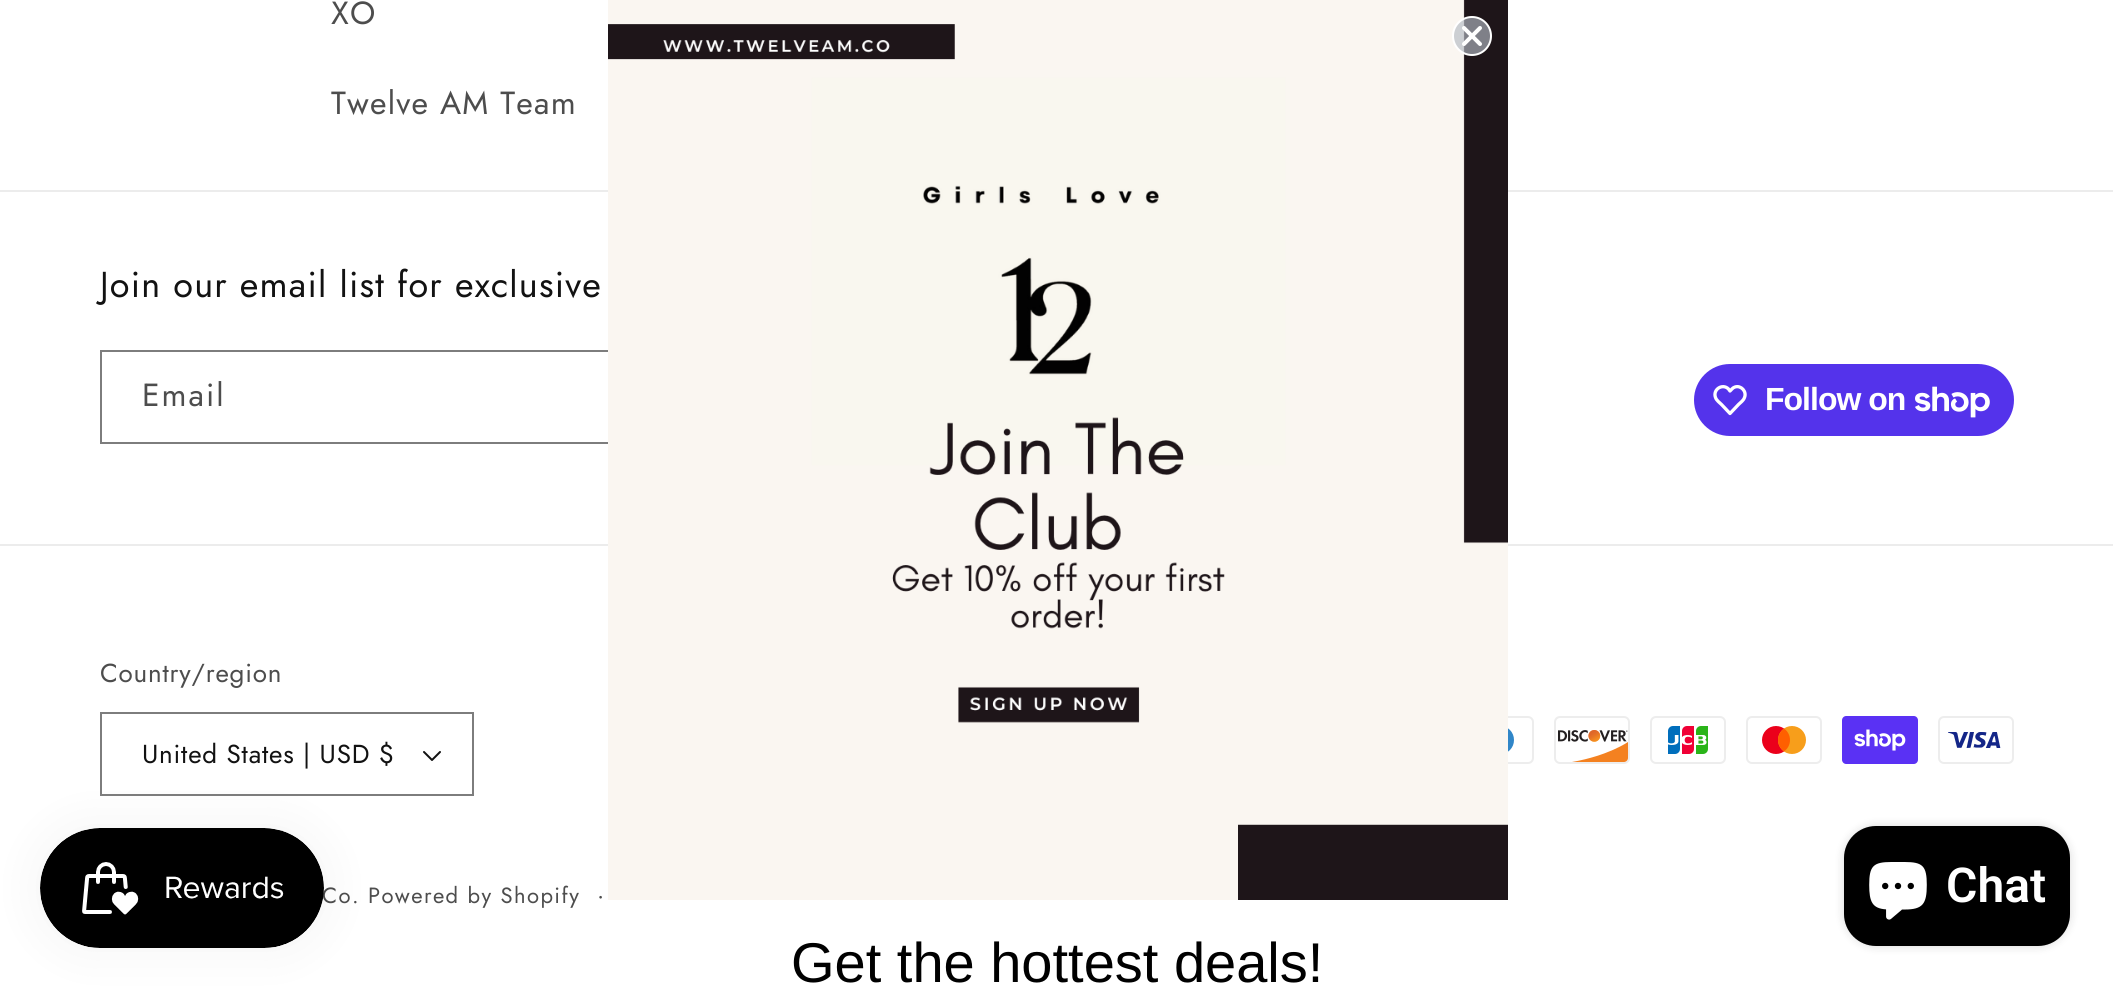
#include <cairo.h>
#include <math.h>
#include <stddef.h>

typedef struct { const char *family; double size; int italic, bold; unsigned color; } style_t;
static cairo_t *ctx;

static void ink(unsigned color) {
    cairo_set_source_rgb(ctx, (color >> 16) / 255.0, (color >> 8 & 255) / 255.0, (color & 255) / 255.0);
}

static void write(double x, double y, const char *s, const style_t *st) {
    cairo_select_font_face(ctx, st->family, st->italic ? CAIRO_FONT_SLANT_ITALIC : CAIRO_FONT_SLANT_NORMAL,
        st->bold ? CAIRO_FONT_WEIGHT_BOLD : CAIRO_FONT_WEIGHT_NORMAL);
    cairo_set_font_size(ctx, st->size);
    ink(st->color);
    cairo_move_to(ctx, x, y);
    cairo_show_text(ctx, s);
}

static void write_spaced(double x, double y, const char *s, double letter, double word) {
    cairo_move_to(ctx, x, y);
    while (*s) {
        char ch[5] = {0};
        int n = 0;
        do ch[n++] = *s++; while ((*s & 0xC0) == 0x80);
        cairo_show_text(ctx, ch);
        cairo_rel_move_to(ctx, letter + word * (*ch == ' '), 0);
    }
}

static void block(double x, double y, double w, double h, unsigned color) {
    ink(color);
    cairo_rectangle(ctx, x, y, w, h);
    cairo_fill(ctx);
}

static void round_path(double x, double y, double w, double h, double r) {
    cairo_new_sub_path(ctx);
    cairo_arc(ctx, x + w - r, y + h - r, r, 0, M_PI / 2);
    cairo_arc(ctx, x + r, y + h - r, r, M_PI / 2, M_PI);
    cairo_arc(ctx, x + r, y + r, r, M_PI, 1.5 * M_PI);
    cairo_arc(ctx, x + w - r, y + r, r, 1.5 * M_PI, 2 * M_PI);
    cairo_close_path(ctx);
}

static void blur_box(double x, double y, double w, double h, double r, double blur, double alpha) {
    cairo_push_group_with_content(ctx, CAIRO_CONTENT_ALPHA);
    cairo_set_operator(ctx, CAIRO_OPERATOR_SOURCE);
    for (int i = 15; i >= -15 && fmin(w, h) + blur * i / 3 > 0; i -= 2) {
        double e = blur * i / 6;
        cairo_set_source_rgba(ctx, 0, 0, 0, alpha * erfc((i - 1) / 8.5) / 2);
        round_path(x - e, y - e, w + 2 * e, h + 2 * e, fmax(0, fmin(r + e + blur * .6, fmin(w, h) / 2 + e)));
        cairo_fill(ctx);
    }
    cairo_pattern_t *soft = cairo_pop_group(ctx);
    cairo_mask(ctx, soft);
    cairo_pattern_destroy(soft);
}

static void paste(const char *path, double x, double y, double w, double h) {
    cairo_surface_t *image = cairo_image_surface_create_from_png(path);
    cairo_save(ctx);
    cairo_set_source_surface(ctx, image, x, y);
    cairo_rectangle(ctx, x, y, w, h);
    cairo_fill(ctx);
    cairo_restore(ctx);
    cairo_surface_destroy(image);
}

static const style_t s1 = {"Roboto SemiBold", 48, 0, 0, 0xffffff};
static const style_t s2 = {"Liberation Sans", 56, 0, 0, 0x000000};

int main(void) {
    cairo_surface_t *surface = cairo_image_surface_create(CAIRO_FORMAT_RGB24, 2113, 988);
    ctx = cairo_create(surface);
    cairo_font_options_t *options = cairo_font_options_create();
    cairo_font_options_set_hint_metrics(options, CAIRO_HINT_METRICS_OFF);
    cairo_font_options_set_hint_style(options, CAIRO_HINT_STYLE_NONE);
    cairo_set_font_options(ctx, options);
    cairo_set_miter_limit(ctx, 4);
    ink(0xffffff);
    cairo_paint(ctx);
    cairo_select_font_face(ctx, "Jost", CAIRO_FONT_SLANT_NORMAL, CAIRO_FONT_WEIGHT_NORMAL);
    cairo_set_font_size(ctx, 32);
    ink(0x4d4d4d);
    write_spaced(331, 24, "XO", 1.2, 0);
    write_spaced(331, 114, "Twelve AM Team", 1.2, 0);
    block(0, 190, 2113, 2, 0xececec);
    cairo_set_font_size(ctx, 36);
    ink(0x121212);
    write_spaced(100, 297, "Join our email list for exclusive", 1.2, 0);
    cairo_rectangle(ctx, 101, 351, 718, 92);
    ink(0x7d7d7d);
    cairo_stroke(ctx);
    cairo_set_font_size(ctx, 32);
    ink(0x4d4d4d);
    write_spaced(142, 406, "Email", 2, 0);
    ink(0x5433eb);
    round_path(1694, 364, 320, 72, 36);
    cairo_fill(ctx);
    cairo_new_path(ctx);
    cairo_move_to(ctx, 1728.5, 389);
    cairo_line_to(ctx, 1730, 391);
    cairo_curve_to(ctx, 1731.5, 389.5, 1733, 387.5, 1735, 387);
    cairo_curve_to(ctx, 1741, 385, 1747, 391.5, 1744.5, 397.5);
    cairo_curve_to(ctx, 1743.5, 400.5, 1740.5, 402.5, 1738.5, 404.5);
    cairo_line_to(ctx, 1730, 413.5);
    cairo_line_to(ctx, 1721.5, 404.5);
    cairo_curve_to(ctx, 1719.5, 402.5, 1716.5, 400.5, 1715.5, 397.5);
    cairo_curve_to(ctx, 1712.5, 389.5, 1722.5, 383, 1728.5, 389);
    cairo_close_path(ctx);
    ink(0xffffff);
    cairo_set_line_width(ctx, 3.3);
    cairo_set_line_join(ctx, CAIRO_LINE_JOIN_ROUND);
    cairo_stroke(ctx);
    cairo_select_font_face(ctx, "Liberation Sans", CAIRO_FONT_SLANT_NORMAL, CAIRO_FONT_WEIGHT_BOLD);
    write_spaced(1765, 410, "Follow on", -1, 0);
    paste("pic1.png", 1915, 386, 75, 32);
    block(0, 544, 2113, 2, 0xececec);
    cairo_select_font_face(ctx, "Jost", CAIRO_FONT_SLANT_NORMAL, CAIRO_FONT_WEIGHT_NORMAL);
    cairo_set_font_size(ctx, 26);
    ink(0x4d4d4d);
    write_spaced(100, 682, "Country/region", 0.8, 0);
    paste("pic2.png", 423, 751, 18, 10);
    cairo_rectangle(ctx, 101, 713, 372, 82);
    ink(0x7d7d7d);
    cairo_set_line_width(ctx, 2);
    cairo_set_line_join(ctx, CAIRO_LINE_JOIN_MITER);
    cairo_stroke(ctx);
    ink(0x121212);
    write_spaced(142, 763, "United States | USD $", 0.8, 0);
    paste("pic3.png", 1508, 716, 26, 48);
    paste("pic4.png", 1554, 716, 76, 48);
    paste("pic5.png", 1650, 716, 76, 48);
    paste("pic6.png", 1746, 716, 76, 48);
    paste("pic7.png", 1842, 716, 76, 48);
    paste("pic8.png", 1938, 716, 76, 48);
    cairo_set_font_size(ctx, 22);
    ink(0x4d4d4d);
    write_spaced(322, 903, "Co.", 1.4, 0);
    write_spaced(368, 903, "Powered by Shopify", 1.4, 0);
    cairo_set_font_size(ctx, 24);
    write_spaced(597, 903, "·", 1.4, 0);
    ink(0x000000);
    blur_box(40, 828, 284, 120, 60, 25, 0.05);
    paste("pic9.png", 40, 828, 284, 120);
    blur_box(1844, 826, 226, 120, 32, 5, 0.15);
    ink(0x000000);
    round_path(1844, 826, 226, 120, 32);
    cairo_fill(ctx);
    paste("pic10.png", 1869, 862, 58, 58);
    write(1946, 902, "Chat", &s1);
    paste("pic11.png", 608, 0, 900, 900);
    cairo_set_source_rgba(ctx, 0.706, 0.733, 0.765, 0.65);
    cairo_arc(ctx, 1472, 36, 19, 0, 2 * M_PI);
    cairo_fill_preserve(ctx);
    ink(0xffffff);
    cairo_stroke(ctx);
    cairo_new_path(ctx);
    cairo_move_to(ctx, 1464, 28);
    cairo_line_to(ctx, 1480, 44);
    cairo_move_to(ctx, 1464, 44);
    cairo_line_to(ctx, 1480, 28);
    cairo_close_path(ctx);
    cairo_set_line_width(ctx, 4);
    cairo_set_line_cap(ctx, CAIRO_LINE_CAP_ROUND);
    cairo_set_line_join(ctx, CAIRO_LINE_JOIN_ROUND);
    cairo_stroke(ctx);
    write(791, 982, "Get the hottest deals!", &s2);
    cairo_surface_write_to_png(surface, "screenshot.png");
    cairo_font_options_destroy(options);
    cairo_destroy(ctx);
    cairo_surface_destroy(surface);
    return 0;
}
